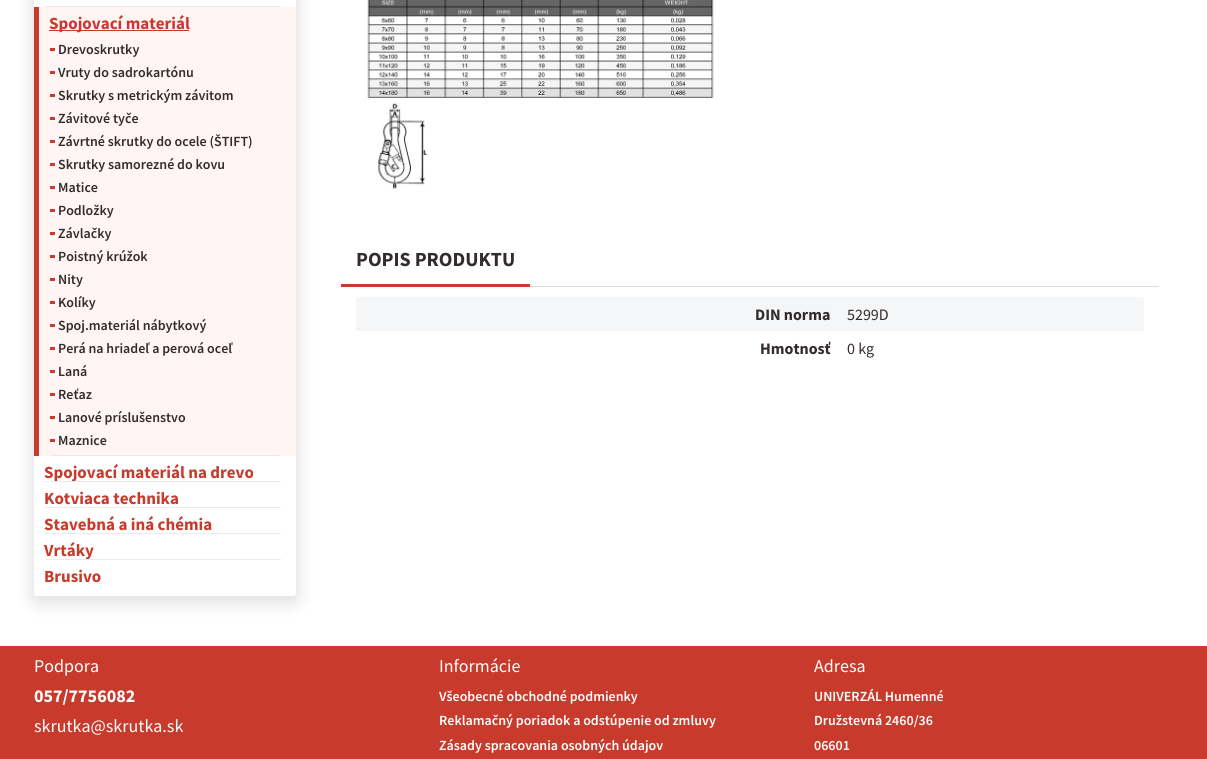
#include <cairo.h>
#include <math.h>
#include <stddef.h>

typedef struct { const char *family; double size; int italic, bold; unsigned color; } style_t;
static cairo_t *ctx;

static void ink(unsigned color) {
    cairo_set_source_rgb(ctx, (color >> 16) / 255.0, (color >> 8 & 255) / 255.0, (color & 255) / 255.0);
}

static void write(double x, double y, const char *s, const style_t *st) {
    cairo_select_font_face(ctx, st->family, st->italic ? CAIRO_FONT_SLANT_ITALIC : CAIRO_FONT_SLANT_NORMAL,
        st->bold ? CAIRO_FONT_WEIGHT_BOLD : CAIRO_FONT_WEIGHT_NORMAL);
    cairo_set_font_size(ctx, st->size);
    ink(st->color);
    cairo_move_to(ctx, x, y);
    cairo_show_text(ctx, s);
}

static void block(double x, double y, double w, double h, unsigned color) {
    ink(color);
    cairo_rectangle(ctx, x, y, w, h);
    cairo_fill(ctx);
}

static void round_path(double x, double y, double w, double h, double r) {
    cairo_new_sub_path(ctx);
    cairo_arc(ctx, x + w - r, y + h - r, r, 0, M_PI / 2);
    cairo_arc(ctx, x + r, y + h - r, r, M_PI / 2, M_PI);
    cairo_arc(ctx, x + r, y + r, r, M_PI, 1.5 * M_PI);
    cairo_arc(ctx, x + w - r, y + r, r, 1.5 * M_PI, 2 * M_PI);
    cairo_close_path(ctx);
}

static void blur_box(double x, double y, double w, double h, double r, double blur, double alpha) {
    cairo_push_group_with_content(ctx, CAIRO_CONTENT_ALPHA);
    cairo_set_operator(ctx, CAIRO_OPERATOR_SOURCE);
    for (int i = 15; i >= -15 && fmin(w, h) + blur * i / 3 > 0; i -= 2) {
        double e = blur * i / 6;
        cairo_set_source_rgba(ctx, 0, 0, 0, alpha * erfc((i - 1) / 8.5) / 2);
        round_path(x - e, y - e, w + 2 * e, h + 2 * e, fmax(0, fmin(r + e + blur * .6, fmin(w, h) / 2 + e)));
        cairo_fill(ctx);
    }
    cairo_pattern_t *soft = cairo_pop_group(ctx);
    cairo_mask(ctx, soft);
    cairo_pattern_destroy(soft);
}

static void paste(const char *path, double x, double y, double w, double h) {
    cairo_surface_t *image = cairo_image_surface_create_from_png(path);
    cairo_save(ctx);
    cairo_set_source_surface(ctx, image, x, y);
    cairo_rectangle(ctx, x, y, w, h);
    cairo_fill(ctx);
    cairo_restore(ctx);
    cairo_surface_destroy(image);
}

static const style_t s1 = {"Source Sans Pro", 17, 0, 1, 0xc83a2b};
static const style_t s2 = {"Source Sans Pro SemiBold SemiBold", 14, 0, 0, 0x332c2c};
static const style_t s3 = {"Source Sans Pro", 20, 0, 1, 0x332c2c};
static const style_t s4 = {"Source Sans Pro", 16, 0, 1, 0x332c2c};
static const style_t s5 = {"Source Sans Pro", 16, 0, 0, 0x332c2c};
static const style_t s6 = {"Source Sans Pro", 18, 0, 0, 0xffffff};
static const style_t s7 = {"Source Sans Pro", 18, 0, 1, 0xffffff};
static const style_t s8 = {"Source Sans Pro SemiBold SemiBold", 14, 0, 0, 0xffffff};

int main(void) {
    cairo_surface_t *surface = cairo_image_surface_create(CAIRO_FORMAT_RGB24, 1207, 759);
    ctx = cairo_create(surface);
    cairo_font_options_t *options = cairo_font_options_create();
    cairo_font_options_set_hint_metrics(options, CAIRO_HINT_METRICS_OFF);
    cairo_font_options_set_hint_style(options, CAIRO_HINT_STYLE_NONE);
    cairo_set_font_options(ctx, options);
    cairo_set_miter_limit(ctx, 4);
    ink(0xffffff);
    cairo_paint(ctx);
    ink(0x000000);
    blur_box(34, -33, 262, 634, 3, 10, 0.15);
    ink(0xffffff);
    round_path(34, -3, 262, 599, 3);
    cairo_fill(ctx);
    block(45, 6, 236, 1, 0xebebeb);
    block(39, 7, 257, 449, 0xfff5f4);
    block(34, 7, 5, 449, 0xc83a2b);
    block(49, 30, 140, 1, 0xc83a2b);
    write(49, 29, "Spojovací materiál", &s1);
    block(50, 48, 5, 3, 0xc83a2b);
    write(58, 54, "Drevoskrutky", &s2);
    block(50, 71, 5, 3, 0xc83a2b);
    write(58, 77, "Vruty do sadrokartónu", &s2);
    block(50, 94, 5, 3, 0xc83a2b);
    write(58, 100, "Skrutky s metrickým závitom", &s2);
    block(50, 117, 5, 3, 0xc83a2b);
    write(58, 123, "Závitové tyče", &s2);
    block(50, 140, 5, 3, 0xc83a2b);
    write(58, 146, "Závrtné skrutky do ocele (ŠTIFT)", &s2);
    block(50, 163, 5, 3, 0xc83a2b);
    write(58, 169, "Skrutky samorezné do kovu", &s2);
    block(50, 186, 5, 3, 0xc83a2b);
    write(58, 192, "Matice", &s2);
    block(50, 209, 5, 3, 0xc83a2b);
    write(58, 215, "Podložky", &s2);
    block(50, 232, 5, 3, 0xc83a2b);
    write(58, 238, "Závlačky", &s2);
    block(50, 255, 5, 3, 0xc83a2b);
    write(58, 261, "Poistný krúžok", &s2);
    block(50, 278, 5, 3, 0xc83a2b);
    write(58, 284, "Nity", &s2);
    block(50, 301, 5, 3, 0xc83a2b);
    write(58, 307, "Kolíky", &s2);
    block(50, 324, 5, 3, 0xc83a2b);
    write(58, 330, "Spoj.materiál nábytkový", &s2);
    block(50, 347, 5, 3, 0xc83a2b);
    write(58, 353, "Perá na hriadeľ a perová oceľ", &s2);
    block(50, 370, 5, 3, 0xc83a2b);
    write(58, 376, "Laná", &s2);
    block(50, 393, 5, 3, 0xc83a2b);
    write(58, 399, "Reťaz", &s2);
    block(50, 416, 5, 3, 0xc83a2b);
    write(58, 422, "Lanové príslušenstvo", &s2);
    block(50, 439, 5, 3, 0xc83a2b);
    write(58, 445, "Maznice", &s2);
    block(50, 455, 231, 1, 0xebebeb);
    write(44, 478, "Spojovací materiál na drevo", &s1);
    block(45, 481, 236, 1, 0xebebeb);
    write(44, 504, "Kotviaca technika", &s1);
    block(45, 507, 236, 1, 0xebebeb);
    write(44, 530, "Stavebná a iná chémia", &s1);
    block(45, 533, 236, 1, 0xebebeb);
    write(44, 556, "Vrtáky", &s1);
    block(45, 559, 236, 1, 0xebebeb);
    write(44, 582, "Brusivo", &s1);
    paste("pic1.png", 367, 0, 347, 189);
    block(530, 286, 629, 1, 0xdddddd);
    block(341, 284, 189, 3, 0xc83a2b);
    write(356, 266, "POPIS PRODUKTU", &s3);
    ink(0xf5f6f7);
    cairo_new_path(ctx);
    cairo_move_to(ctx, 359, 297);
    cairo_line_to(ctx, 1141, 297);
    cairo_curve_to(ctx, 1142.5, 297, 1144, 298.5, 1144, 300);
    cairo_line_to(ctx, 1144, 331);
    cairo_line_to(ctx, 356, 331);
    cairo_line_to(ctx, 356, 300);
    cairo_curve_to(ctx, 356, 298.5, 357.5, 297, 359, 297);
    cairo_close_path(ctx);
    cairo_fill(ctx);
    write(755, 320, "DIN norma", &s4);
    write(847, 320, "5299D", &s5);
    write(760, 354, "Hmotnosť", &s4);
    write(847, 354, "0 kg", &s5);
    block(0, 646, 1207, 113, 0xc83a2b);
    write(34, 672, "Podpora", &s6);
    write(34, 702, "057/7756082", &s7);
    write(34, 732, "skrutka@skrutka.sk", &s6);
    write(439, 672, "Informácie", &s6);
    write(439, 701, "Všeobecné obchodné podmienky", &s8);
    write(439, 725, "Reklamačný poriadok a odstúpenie od zmluvy", &s8);
    write(439, 750, "Zásady spracovania osobných údajov", &s8);
    write(814, 672, "Adresa", &s6);
    write(814, 701, "UNIVERZÁL Humenné", &s8);
    write(814, 725, "Družstevná 2460/36", &s8);
    write(814, 750, "06601", &s8);
    cairo_surface_write_to_png(surface, "screenshot.png");
    cairo_font_options_destroy(options);
    cairo_destroy(ctx);
    cairo_surface_destroy(surface);
    return 0;
}
